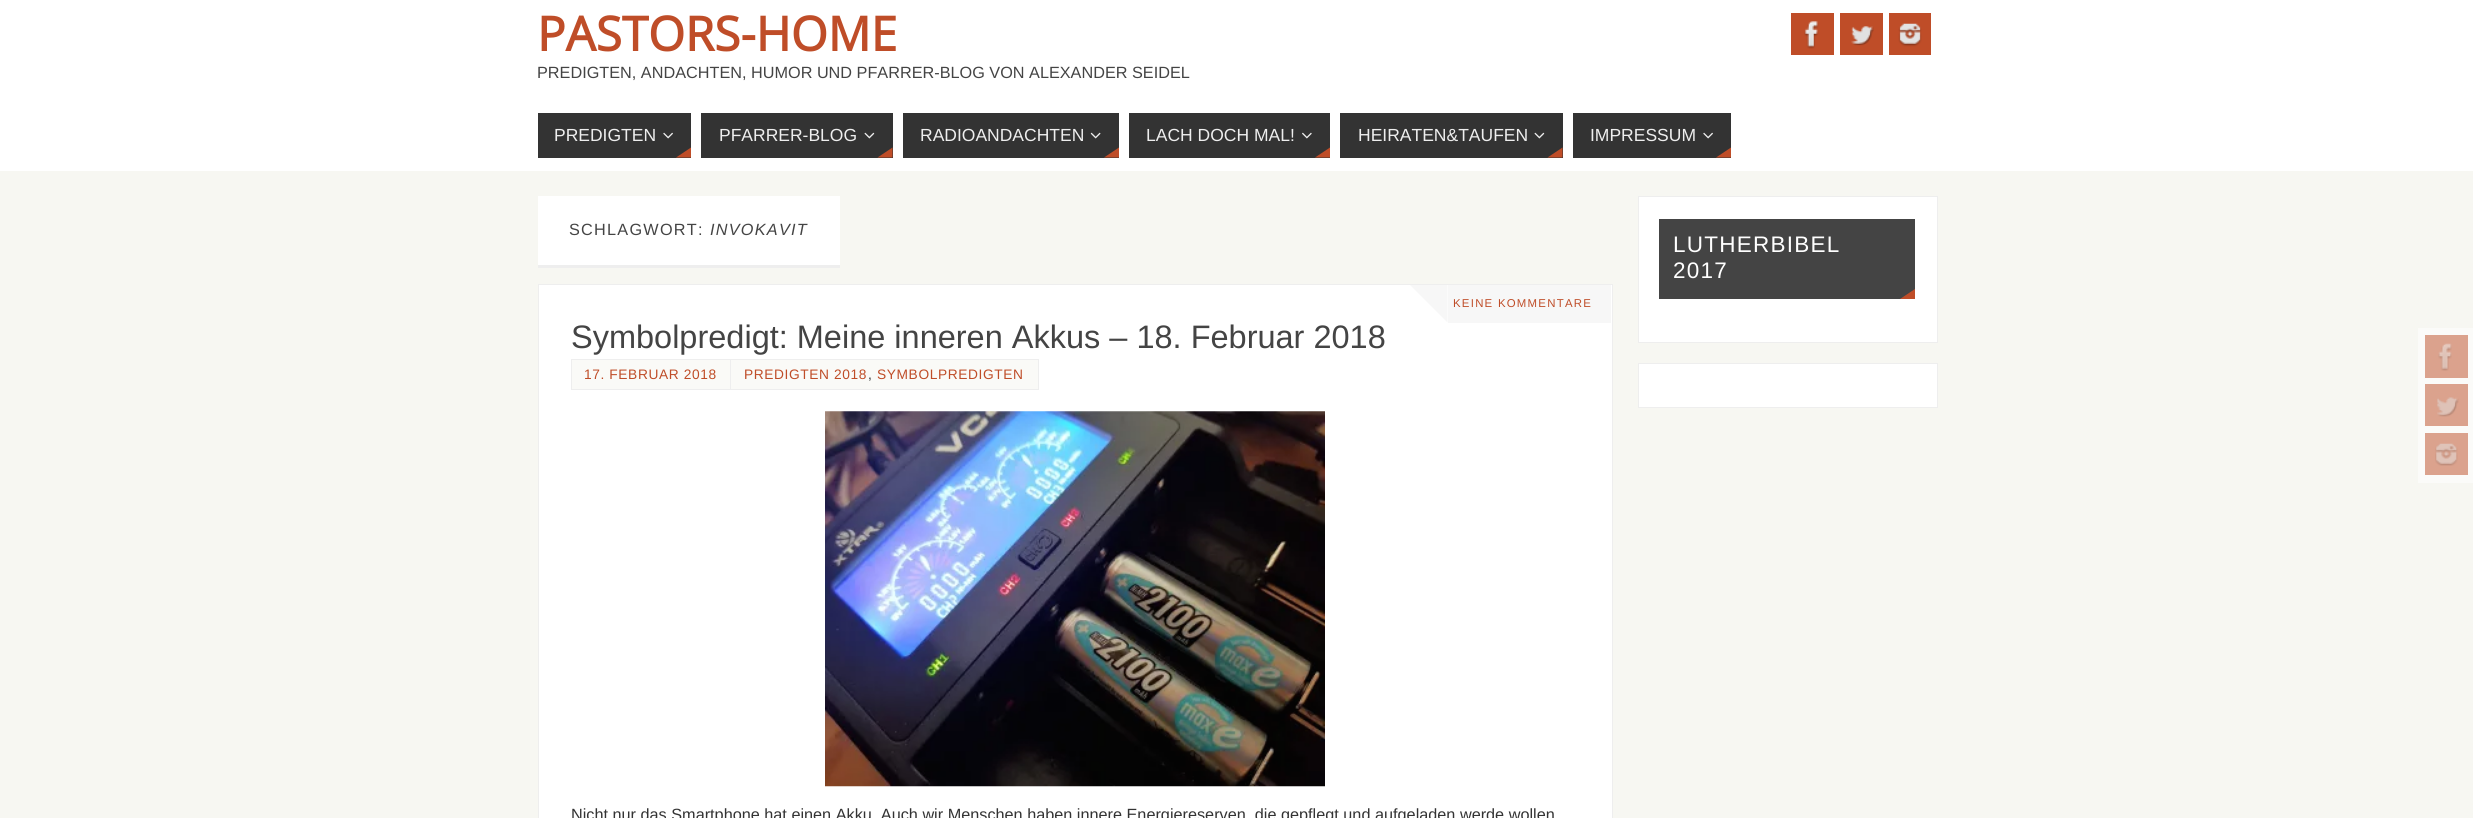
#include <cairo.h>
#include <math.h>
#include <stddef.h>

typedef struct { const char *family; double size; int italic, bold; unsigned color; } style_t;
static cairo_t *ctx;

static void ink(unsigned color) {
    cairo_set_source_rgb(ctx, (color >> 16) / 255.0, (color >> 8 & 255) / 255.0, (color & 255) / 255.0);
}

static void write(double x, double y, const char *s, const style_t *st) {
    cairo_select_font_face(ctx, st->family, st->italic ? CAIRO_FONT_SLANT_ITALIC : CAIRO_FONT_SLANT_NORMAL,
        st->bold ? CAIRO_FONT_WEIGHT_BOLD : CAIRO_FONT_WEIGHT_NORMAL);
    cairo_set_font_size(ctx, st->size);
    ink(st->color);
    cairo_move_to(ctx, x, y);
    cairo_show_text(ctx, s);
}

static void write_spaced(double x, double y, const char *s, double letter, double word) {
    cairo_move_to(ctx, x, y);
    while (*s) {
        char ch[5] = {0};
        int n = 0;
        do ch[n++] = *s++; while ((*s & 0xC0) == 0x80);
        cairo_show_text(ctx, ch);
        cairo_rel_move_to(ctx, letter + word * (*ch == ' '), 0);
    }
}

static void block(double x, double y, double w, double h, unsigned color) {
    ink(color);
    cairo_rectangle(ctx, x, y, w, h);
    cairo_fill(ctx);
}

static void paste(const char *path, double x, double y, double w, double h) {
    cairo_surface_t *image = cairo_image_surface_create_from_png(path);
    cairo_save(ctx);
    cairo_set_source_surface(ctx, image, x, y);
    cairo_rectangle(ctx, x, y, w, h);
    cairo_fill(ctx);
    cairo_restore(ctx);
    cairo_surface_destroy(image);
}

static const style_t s1 = {"Open Sans", 47.5, 0, 1, 0xbf4d28};
static const style_t s2 = {"Liberation Sans", 16.25, 0, 0, 0x444444};
static const style_t s3 = {"Liberation Sans", 17.5, 0, 0, 0xeeeeee};
static const style_t s4 = {"Liberation Sans", 32.5, 0, 0, 0x444444};
static const style_t s5 = {"Liberation Sans", 16.25, 0, 0, 0x333333};

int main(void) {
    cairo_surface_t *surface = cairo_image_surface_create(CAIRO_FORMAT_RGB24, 2473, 818);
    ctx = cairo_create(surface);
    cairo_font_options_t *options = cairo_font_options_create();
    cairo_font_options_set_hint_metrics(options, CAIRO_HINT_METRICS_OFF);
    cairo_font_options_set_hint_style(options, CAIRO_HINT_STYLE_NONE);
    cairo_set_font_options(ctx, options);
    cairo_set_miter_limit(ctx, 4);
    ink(0xf7f7f2);
    cairo_paint(ctx);
    block(0, 0, 2473, 171, 0xffffff);
    write(537, 51, "PASTORS-HOME", &s1);
    write(537, 78, "PREDIGTEN, ANDACHTEN, HUMOR UND PFARRER-BLOG VON ALEXANDER SEIDEL", &s2);
    block(1791, 13, 43, 42, 0xbf4d28);
    paste("pic1.png", 1804, 21, 15, 28);
    block(1840, 13, 43, 42, 0xbf4d28);
    paste("pic2.png", 1851, 26, 23, 20);
    block(1889, 13, 42, 42, 0xbf4d28);
    paste("pic3.png", 1898, 23, 24, 24);
    block(538, 113, 153, 45, 0x333333);
    write(554, 141, "PREDIGTEN", &s3);
    paste("pic4.png", 663, 132, 10, 7);
    ink(0xbf4d28);
    cairo_new_path(ctx);
    cairo_move_to(ctx, 691, 157.5);
    cairo_line_to(ctx, 676, 157.5);
    cairo_line_to(ctx, 691, 147.5);
    cairo_close_path(ctx);
    cairo_fill(ctx);
    block(701, 113, 192, 45, 0x333333);
    write(719, 141, "PFARRER-BLOG", &s3);
    paste("pic5.png", 864, 132, 11, 7);
    ink(0xbf4d28);
    cairo_new_path(ctx);
    cairo_move_to(ctx, 892.5, 157.5);
    cairo_line_to(ctx, 877.5, 157.5);
    cairo_line_to(ctx, 892.5, 147.5);
    cairo_close_path(ctx);
    cairo_fill(ctx);
    block(903, 113, 216, 45, 0x333333);
    write(920, 141, "RADIOANDACHTEN", &s3);
    paste("pic6.png", 1090, 132, 11, 7);
    ink(0xbf4d28);
    cairo_new_path(ctx);
    cairo_move_to(ctx, 1119, 157.5);
    cairo_line_to(ctx, 1104, 157.5);
    cairo_line_to(ctx, 1119, 147.5);
    cairo_close_path(ctx);
    cairo_fill(ctx);
    block(1129, 113, 201, 45, 0x333333);
    write(1146, 141, "LACH DOCH MAL!", &s3);
    paste("pic7.png", 1302, 132, 10, 7);
    ink(0xbf4d28);
    cairo_new_path(ctx);
    cairo_move_to(ctx, 1330, 157.5);
    cairo_line_to(ctx, 1315, 157.5);
    cairo_line_to(ctx, 1330, 147.5);
    cairo_close_path(ctx);
    cairo_fill(ctx);
    block(1340, 113, 223, 45, 0x333333);
    write(1358, 141, "HEIRATEN&TAUFEN", &s3);
    paste("pic5.png", 1534, 132, 11, 7);
    ink(0xbf4d28);
    cairo_new_path(ctx);
    cairo_move_to(ctx, 1562.5, 157.5);
    cairo_line_to(ctx, 1547.5, 157.5);
    cairo_line_to(ctx, 1562.5, 147.5);
    cairo_close_path(ctx);
    cairo_fill(ctx);
    block(1573, 113, 158, 45, 0x333333);
    write(1590, 141, "IMPRESSUM", &s3);
    paste("pic4.png", 1703, 132, 10, 7);
    ink(0xbf4d28);
    cairo_new_path(ctx);
    cairo_move_to(ctx, 1731, 157.5);
    cairo_line_to(ctx, 1716, 157.5);
    cairo_line_to(ctx, 1731, 147.5);
    cairo_close_path(ctx);
    cairo_fill(ctx);
    block(538, 196, 302, 69, 0xffffff);
    block(538, 265, 302, 3, 0xeeeeee);
    cairo_set_font_size(ctx, 16.25);
    ink(0x444444);
    write_spaced(569, 235, "SCHLAGWORT:", 1.25, 0);
    cairo_select_font_face(ctx, "Liberation Sans", CAIRO_FONT_SLANT_ITALIC, CAIRO_FONT_WEIGHT_NORMAL);
    write_spaced(710, 235, "INVOKAVIT", 1.25, 0);
    ink(0xffffff);
    cairo_rectangle(ctx, 538.5, 284.5, 1074, 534);
    cairo_fill_preserve(ctx);
    ink(0xeeeeee);
    cairo_set_line_width(ctx, 1);
    cairo_stroke(ctx);
    block(1448, 285, 163, 38, 0xf7f7f7);
    cairo_new_path(ctx);
    cairo_move_to(ctx, 1410, 285);
    cairo_line_to(ctx, 1447.5, 285);
    cairo_line_to(ctx, 1447.5, 322.5);
    cairo_close_path(ctx);
    cairo_fill(ctx);
    cairo_select_font_face(ctx, "Liberation Sans", CAIRO_FONT_SLANT_NORMAL, CAIRO_FONT_WEIGHT_NORMAL);
    cairo_set_font_size(ctx, 11.4);
    ink(0xbf4d28);
    write_spaced(1453, 307, "KEINE KOMMENTARE", 1.25, 0);
    write(571, 348, "Symbolpredigt: Meine inneren Akkus – 18. Februar 2018", &s4);
    ink(0xfafaf7);
    cairo_rectangle(ctx, 571.5, 359.5, 159, 30);
    cairo_fill_preserve(ctx);
    ink(0xeeeeee);
    cairo_stroke(ctx);
    cairo_set_font_size(ctx, 13.75);
    ink(0xbf4d28);
    write_spaced(584, 379, "17. FEBRUAR 2018", 0.6, 0);
    ink(0xfafaf7);
    cairo_rectangle(ctx, 730.5, 359.5, 308, 30);
    cairo_fill_preserve(ctx);
    ink(0xeeeeee);
    cairo_stroke(ctx);
    ink(0xbf4d28);
    write_spaced(744, 379, "PREDIGTEN 2018", 0.6, 0);
    ink(0x333333);
    write_spaced(868, 379, ",", 0.6, 0);
    ink(0xbf4d28);
    write_spaced(877, 379, "SYMBOLPREDIGTEN", 0.6, 0);
    paste("pic8.png", 825, 411, 500, 376);
    write(571, 820, "Nicht nur das Smartphone hat einen Akku. Auch wir Menschen haben innere Energiereserven, die gepflegt und aufgeladen werde wollen", &s5);
    ink(0xffffff);
    cairo_rectangle(ctx, 1638.5, 196.5, 299, 146);
    cairo_fill_preserve(ctx);
    ink(0xeeeeee);
    cairo_stroke(ctx);
    block(1659, 219, 256, 80, 0x444444);
    cairo_set_font_size(ctx, 22.5);
    ink(0xffffff);
    write_spaced(1673, 252, "LUTHERBIBEL", 1.25, 0);
    write_spaced(1673, 278, "2017", 1.25, 0);
    ink(0xbf4d28);
    cairo_new_path(ctx);
    cairo_move_to(ctx, 1915, 299);
    cairo_line_to(ctx, 1900, 299);
    cairo_line_to(ctx, 1915, 289);
    cairo_close_path(ctx);
    cairo_fill(ctx);
    ink(0xffffff);
    cairo_rectangle(ctx, 1638.5, 363.5, 299, 44);
    cairo_fill_preserve(ctx);
    ink(0xeeeeee);
    cairo_stroke(ctx);
    block(2418, 328, 55, 155, 0xfbfbf9);
    block(2425, 335, 43, 43, 0xdba28d);
    paste("pic9.png", 2438, 343, 14, 28);
    block(2425, 384, 43, 42, 0xdba28d);
    paste("pic10.png", 2437, 397, 22, 20);
    block(2425, 433, 43, 42, 0xdba28d);
    paste("pic11.png", 2435, 443, 23, 23);
    cairo_surface_write_to_png(surface, "screenshot.png");
    cairo_font_options_destroy(options);
    cairo_destroy(ctx);
    cairo_surface_destroy(surface);
    return 0;
}
